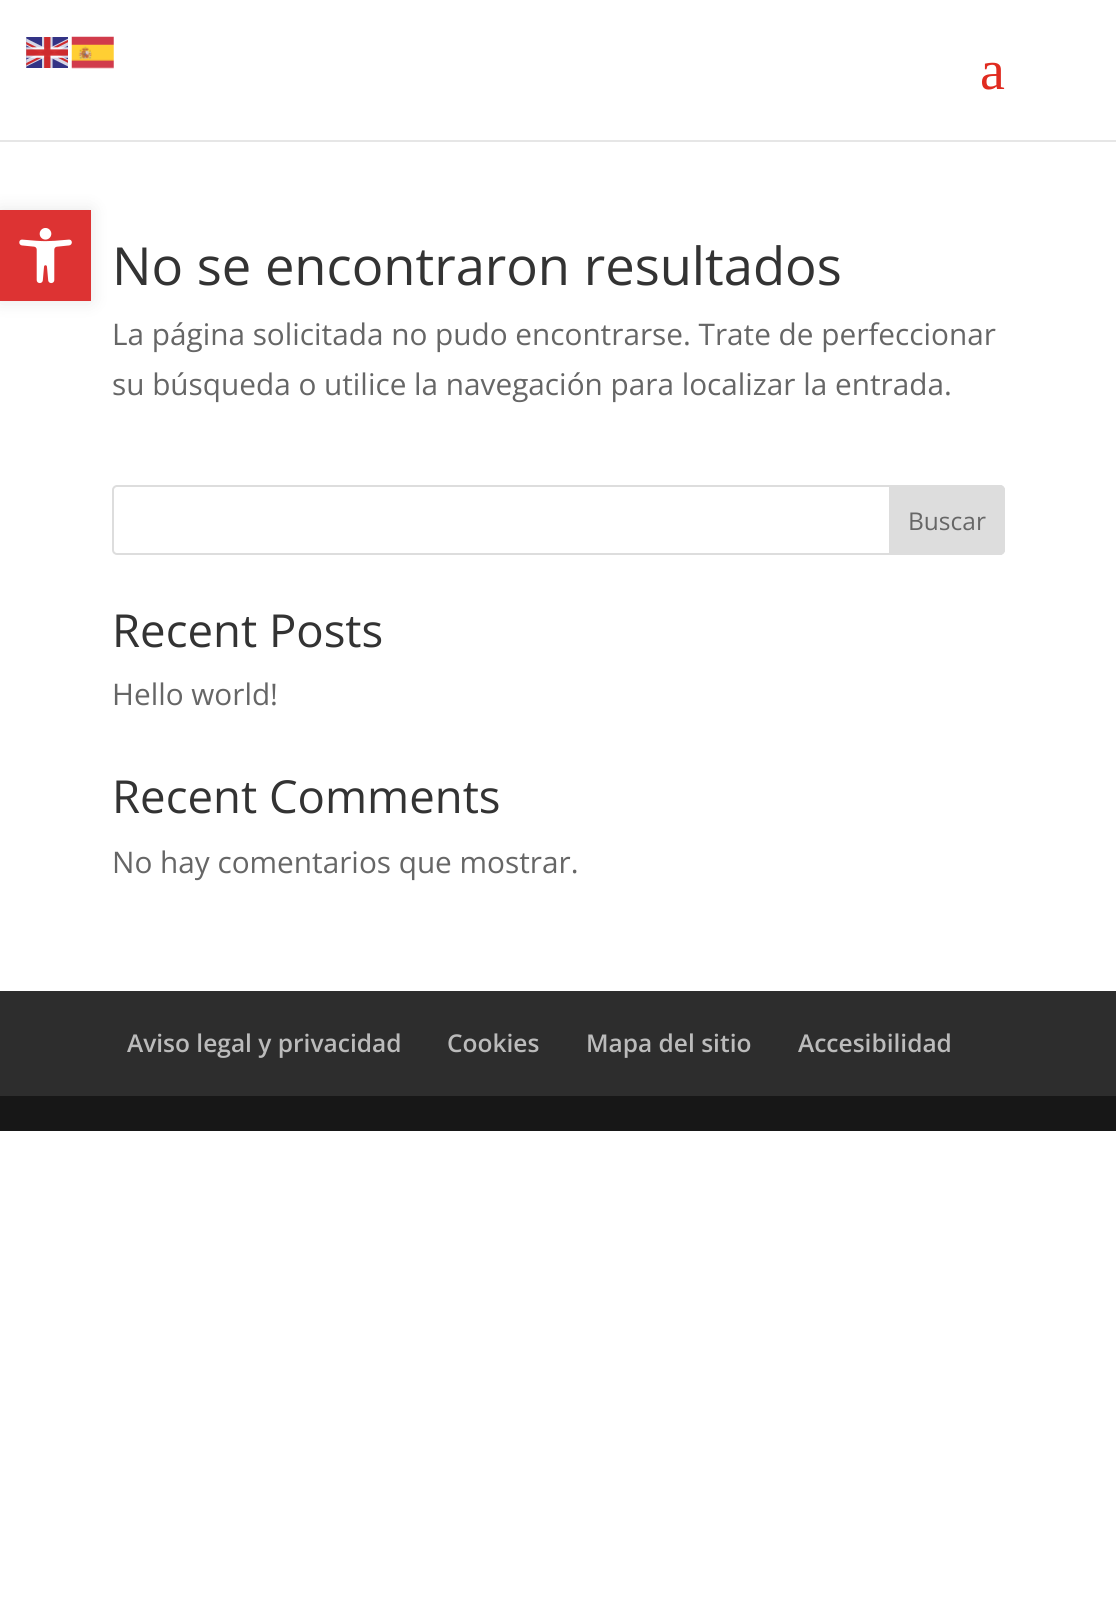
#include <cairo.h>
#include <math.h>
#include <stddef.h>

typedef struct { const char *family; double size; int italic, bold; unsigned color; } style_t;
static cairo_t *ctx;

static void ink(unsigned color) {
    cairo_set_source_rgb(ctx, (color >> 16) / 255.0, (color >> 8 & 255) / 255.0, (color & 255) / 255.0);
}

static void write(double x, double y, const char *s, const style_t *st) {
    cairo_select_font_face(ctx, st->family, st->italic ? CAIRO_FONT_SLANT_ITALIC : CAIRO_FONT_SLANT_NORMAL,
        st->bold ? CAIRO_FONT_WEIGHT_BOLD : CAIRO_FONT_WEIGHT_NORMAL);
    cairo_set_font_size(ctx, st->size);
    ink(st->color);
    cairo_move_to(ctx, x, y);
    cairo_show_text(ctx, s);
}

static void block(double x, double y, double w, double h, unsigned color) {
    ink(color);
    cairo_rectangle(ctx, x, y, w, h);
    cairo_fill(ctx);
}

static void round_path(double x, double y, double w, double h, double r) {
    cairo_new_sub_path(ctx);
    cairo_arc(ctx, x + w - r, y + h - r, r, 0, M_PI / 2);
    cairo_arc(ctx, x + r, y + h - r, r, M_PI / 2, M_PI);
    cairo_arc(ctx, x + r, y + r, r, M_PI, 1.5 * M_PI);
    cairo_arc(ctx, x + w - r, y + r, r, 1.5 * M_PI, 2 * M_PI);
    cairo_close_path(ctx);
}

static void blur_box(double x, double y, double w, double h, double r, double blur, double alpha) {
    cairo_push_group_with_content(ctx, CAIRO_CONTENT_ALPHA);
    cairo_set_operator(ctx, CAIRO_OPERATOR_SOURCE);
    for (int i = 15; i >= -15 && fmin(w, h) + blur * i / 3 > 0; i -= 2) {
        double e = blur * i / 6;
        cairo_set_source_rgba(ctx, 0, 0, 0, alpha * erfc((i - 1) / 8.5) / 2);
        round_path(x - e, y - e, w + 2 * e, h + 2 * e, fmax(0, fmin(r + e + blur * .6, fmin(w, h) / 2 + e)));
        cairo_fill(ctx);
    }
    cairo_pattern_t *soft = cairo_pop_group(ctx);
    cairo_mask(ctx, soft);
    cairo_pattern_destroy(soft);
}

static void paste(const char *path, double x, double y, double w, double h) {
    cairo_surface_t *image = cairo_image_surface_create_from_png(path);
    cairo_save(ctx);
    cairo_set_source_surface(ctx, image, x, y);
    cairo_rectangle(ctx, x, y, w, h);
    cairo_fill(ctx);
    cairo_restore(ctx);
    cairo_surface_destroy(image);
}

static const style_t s1 = {"Liberation Serif", 56, 0, 0, 0xe02b20};
static const style_t s2 = {"Open Sans", 52.5, 0, 0, 0x333333};
static const style_t s3 = {"Open Sans", 29.75, 0, 0, 0x666666};
static const style_t s4 = {"Open Sans", 24.5, 0, 0, 0x666666};
static const style_t s5 = {"Open Sans", 45.5, 0, 0, 0x333333};
static const style_t s6 = {"Open Sans SemiBold", 24.5, 0, 0, 0xbbbbbb};

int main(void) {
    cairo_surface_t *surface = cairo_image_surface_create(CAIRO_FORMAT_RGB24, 1116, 1611);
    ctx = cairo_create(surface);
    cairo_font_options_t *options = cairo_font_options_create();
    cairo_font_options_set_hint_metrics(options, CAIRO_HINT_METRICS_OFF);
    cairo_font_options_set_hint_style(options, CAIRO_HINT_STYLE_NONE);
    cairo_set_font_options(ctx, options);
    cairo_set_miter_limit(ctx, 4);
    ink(0xffffff);
    cairo_paint(ctx);
    paste("pic1.png", 26, 37, 42, 31);
    paste("pic2.png", 71, 36, 43, 33);
    ink(0x000000);
    blur_box(0, 210, 91, 91, 0, 9, 0.1);
    block(0, 210, 91, 91, 0xdd3333);
    paste("pic3.png", 19, 228, 53, 56);
    ink(0xe6e6e6);
    cairo_new_path(ctx);
    cairo_move_to(ctx, 0, 140);
    cairo_line_to(ctx, 0, 142);
    cairo_line_to(ctx, 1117, 142);
    cairo_line_to(ctx, 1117, 2);
    cairo_line_to(ctx, 1116, 2);
    cairo_line_to(ctx, 1116, 140);
    cairo_close_path(ctx);
    cairo_fill(ctx);
    write(980, 89, "a", &s1);
    write(112, 285, "No se encontraron resultados", &s2);
    write(112, 345, "La página solicitada no pudo encontrarse. Trate de perfeccionar", &s3);
    write(112, 395, "su búsqueda o utilice la navegación para localizar la entrada.", &s3);
    round_path(113, 486, 891, 68, 4);
    ink(0xdddddd);
    cairo_stroke(ctx);
    cairo_new_path(ctx);
    cairo_move_to(ctx, 890, 486);
    cairo_line_to(ctx, 1000, 486);
    cairo_curve_to(ctx, 1002, 486, 1004, 488, 1004, 490);
    cairo_line_to(ctx, 1004, 550);
    cairo_curve_to(ctx, 1004, 552, 1002, 554, 1000, 554);
    cairo_line_to(ctx, 890, 554);
    cairo_close_path(ctx);
    cairo_fill_preserve(ctx);
    cairo_stroke(ctx);
    write(908, 530, "Buscar", &s4);
    write(112, 647, "Recent Posts", &s5);
    write(112, 705, "Hello world!", &s3);
    write(112, 813, "Recent Comments", &s5);
    write(112, 873, "No hay comentarios que mostrar.", &s3);
    block(0, 991, 1116, 105, 0x2d2d2d);
    write(127, 1052, "Aviso legal y privacidad", &s6);
    write(447, 1052, "Cookies", &s6);
    write(586, 1052, "Mapa del sitio", &s6);
    write(798, 1052, "Accesibilidad", &s6);
    block(0, 1096, 1116, 35, 0x171717);
    cairo_surface_write_to_png(surface, "screenshot.png");
    cairo_font_options_destroy(options);
    cairo_destroy(ctx);
    cairo_surface_destroy(surface);
    return 0;
}
